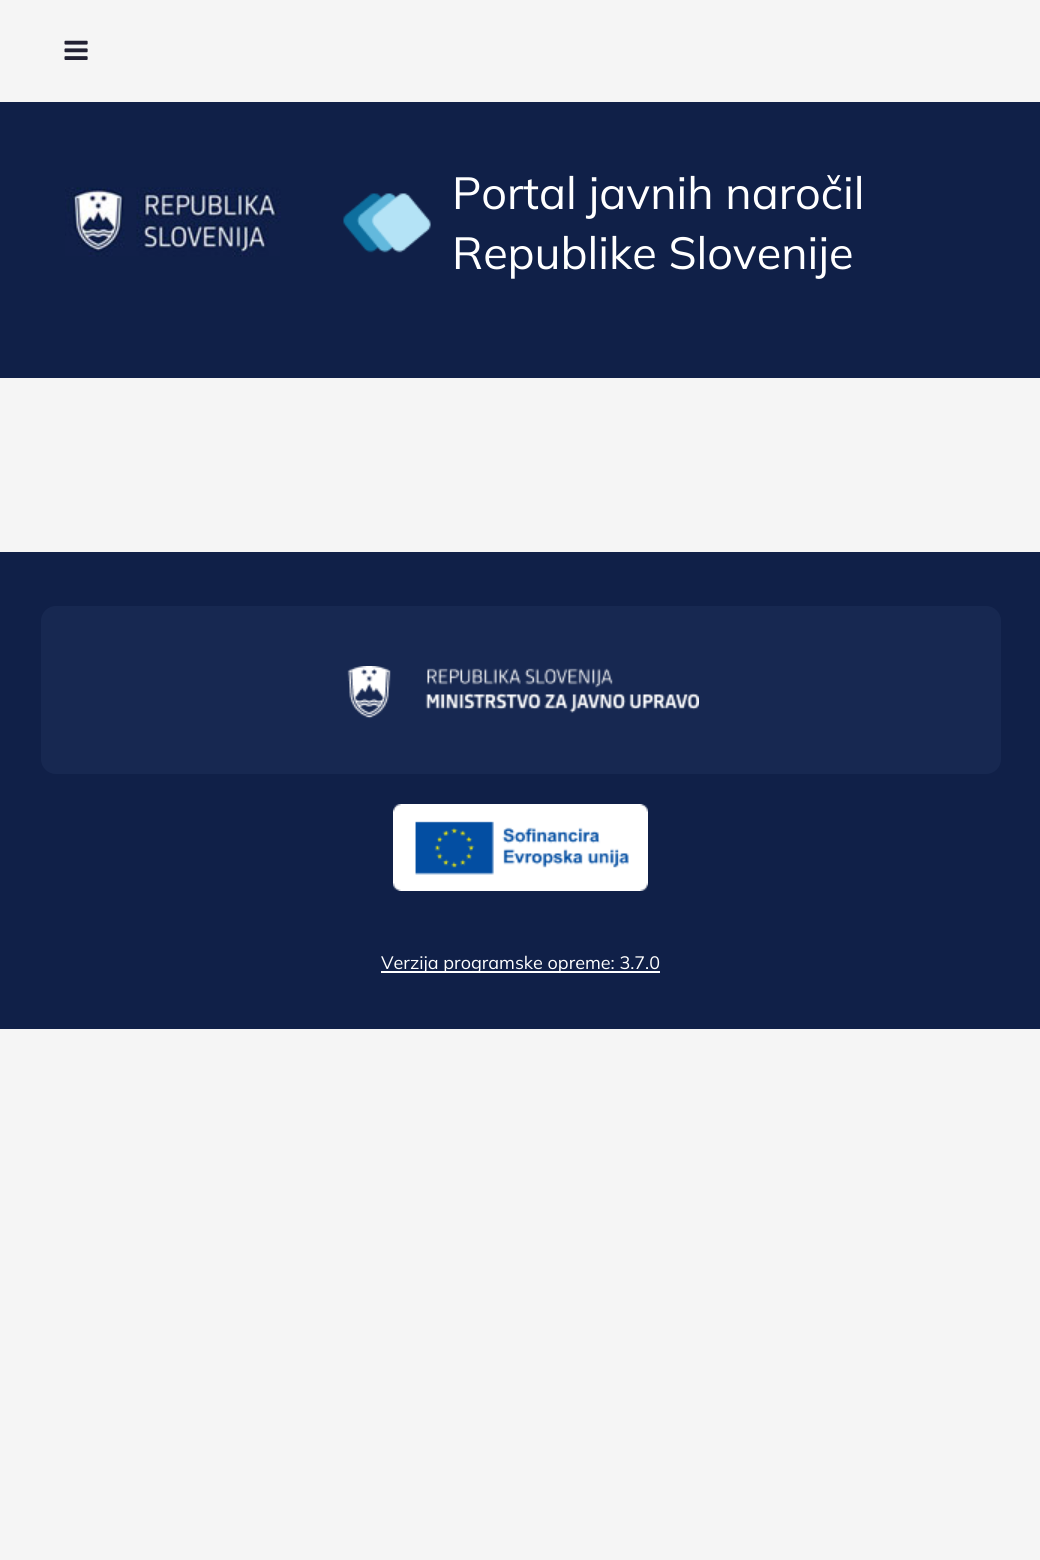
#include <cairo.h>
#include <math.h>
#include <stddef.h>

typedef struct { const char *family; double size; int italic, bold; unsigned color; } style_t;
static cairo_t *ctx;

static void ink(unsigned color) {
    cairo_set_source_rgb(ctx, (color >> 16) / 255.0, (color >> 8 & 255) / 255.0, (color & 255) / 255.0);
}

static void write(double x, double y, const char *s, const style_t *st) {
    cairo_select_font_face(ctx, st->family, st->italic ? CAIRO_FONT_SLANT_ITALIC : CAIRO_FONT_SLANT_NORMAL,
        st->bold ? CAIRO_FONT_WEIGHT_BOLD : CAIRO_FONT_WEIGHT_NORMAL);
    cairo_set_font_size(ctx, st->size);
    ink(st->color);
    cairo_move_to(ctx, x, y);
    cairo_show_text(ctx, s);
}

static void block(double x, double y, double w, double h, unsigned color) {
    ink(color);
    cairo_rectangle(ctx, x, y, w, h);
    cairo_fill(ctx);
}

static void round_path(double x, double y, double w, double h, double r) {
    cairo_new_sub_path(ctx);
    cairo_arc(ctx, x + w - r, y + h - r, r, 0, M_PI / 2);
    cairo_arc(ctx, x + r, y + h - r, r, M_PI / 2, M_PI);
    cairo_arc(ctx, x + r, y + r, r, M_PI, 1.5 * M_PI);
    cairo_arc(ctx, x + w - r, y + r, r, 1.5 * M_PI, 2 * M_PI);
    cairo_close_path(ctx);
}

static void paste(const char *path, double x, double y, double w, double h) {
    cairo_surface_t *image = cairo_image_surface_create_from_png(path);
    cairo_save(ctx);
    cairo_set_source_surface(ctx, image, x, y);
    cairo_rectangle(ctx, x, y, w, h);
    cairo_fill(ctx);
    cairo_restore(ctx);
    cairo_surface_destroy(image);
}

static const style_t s1 = {"Mulish ExtraLight", 45, 0, 0, 0xffffff};
static const style_t s2 = {"Mulish ExtraLight", 18, 0, 0, 0xffffff};

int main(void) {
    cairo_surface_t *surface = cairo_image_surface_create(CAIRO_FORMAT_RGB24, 1040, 1560);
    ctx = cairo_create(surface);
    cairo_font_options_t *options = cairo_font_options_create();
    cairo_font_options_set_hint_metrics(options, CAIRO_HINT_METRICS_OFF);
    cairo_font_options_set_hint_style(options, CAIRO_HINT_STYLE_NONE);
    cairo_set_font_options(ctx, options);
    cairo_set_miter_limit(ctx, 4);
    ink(0xf5f5f5);
    cairo_paint(ctx);
    paste("pic1.png", 64, 40, 24, 20);
    block(0, 102, 1040, 276, 0x102048);
    paste("pic2.png", 65, 187, 216, 70);
    paste("pic3.png", 343, 193, 88, 60);
    write(452, 209, "Portal javnih naročil", &s1);
    write(452, 269, "Republike Slovenije", &s1);
    block(0, 552, 1040, 477, 0x102048);
    ink(0x172851);
    round_path(41, 606, 960, 168, 15);
    cairo_fill(ctx);
    paste("pic4.png", 347, 666, 352, 53);
    paste("pic5.png", 393, 804, 255, 87);
    block(381, 971, 279, 2, 0xffffff);
    write(381, 969, "Verzija programske opreme: 3.7.0", &s2);
    cairo_surface_write_to_png(surface, "screenshot.png");
    cairo_font_options_destroy(options);
    cairo_destroy(ctx);
    cairo_surface_destroy(surface);
    return 0;
}
